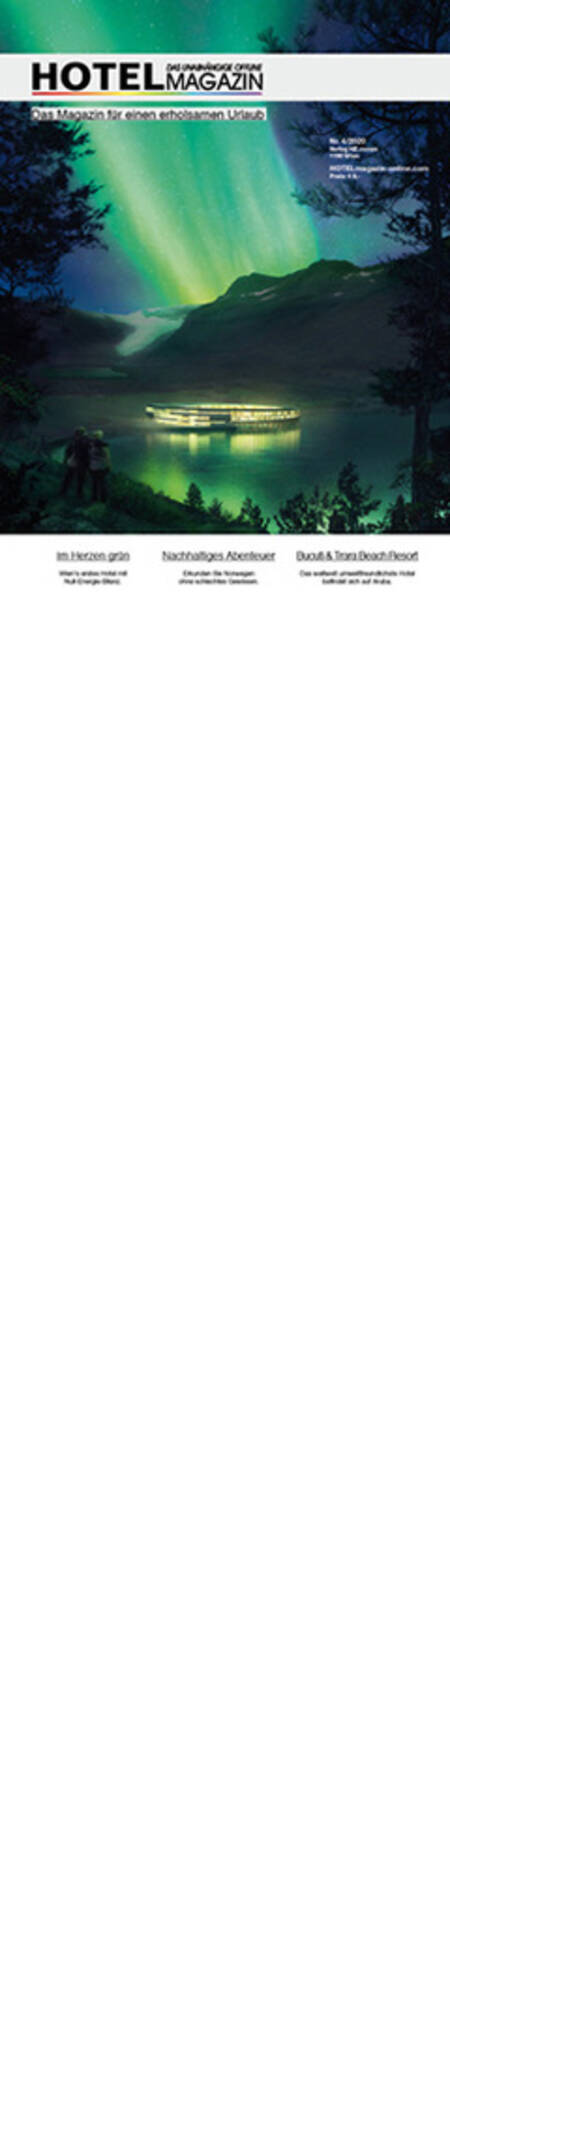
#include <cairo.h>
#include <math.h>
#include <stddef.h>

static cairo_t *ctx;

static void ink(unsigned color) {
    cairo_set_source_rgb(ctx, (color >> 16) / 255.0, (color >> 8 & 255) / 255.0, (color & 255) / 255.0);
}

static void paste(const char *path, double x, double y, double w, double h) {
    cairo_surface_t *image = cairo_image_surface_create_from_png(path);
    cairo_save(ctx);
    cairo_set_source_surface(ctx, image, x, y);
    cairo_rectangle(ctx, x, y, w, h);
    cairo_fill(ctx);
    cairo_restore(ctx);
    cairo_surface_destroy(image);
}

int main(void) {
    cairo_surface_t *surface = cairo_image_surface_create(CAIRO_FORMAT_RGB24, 573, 2131);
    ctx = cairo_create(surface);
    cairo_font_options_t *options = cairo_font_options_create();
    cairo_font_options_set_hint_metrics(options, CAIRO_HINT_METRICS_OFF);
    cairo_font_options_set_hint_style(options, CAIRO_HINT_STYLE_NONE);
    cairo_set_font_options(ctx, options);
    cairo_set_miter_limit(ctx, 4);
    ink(0xffffff);
    cairo_paint(ctx);
    paste("pic1.png", 0, 0, 450, 592);
    cairo_surface_write_to_png(surface, "screenshot.png");
    cairo_font_options_destroy(options);
    cairo_destroy(ctx);
    cairo_surface_destroy(surface);
    return 0;
}
